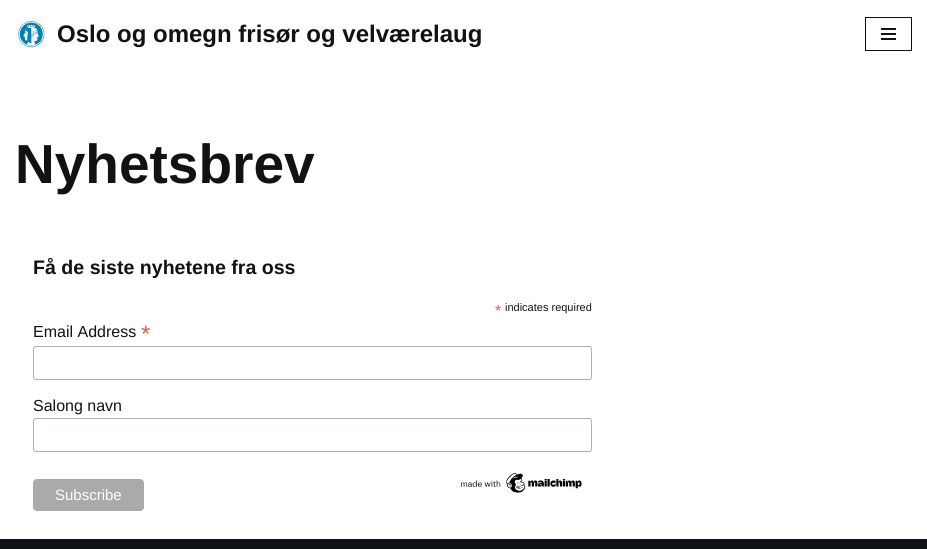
#include <cairo.h>
#include <math.h>
#include <stddef.h>

typedef struct { const char *family; double size; int italic, bold; unsigned color; } style_t;
static cairo_t *ctx;

static void ink(unsigned color) {
    cairo_set_source_rgb(ctx, (color >> 16) / 255.0, (color >> 8 & 255) / 255.0, (color & 255) / 255.0);
}

static void write(double x, double y, const char *s, const style_t *st) {
    cairo_select_font_face(ctx, st->family, st->italic ? CAIRO_FONT_SLANT_ITALIC : CAIRO_FONT_SLANT_NORMAL,
        st->bold ? CAIRO_FONT_WEIGHT_BOLD : CAIRO_FONT_WEIGHT_NORMAL);
    cairo_set_font_size(ctx, st->size);
    ink(st->color);
    cairo_move_to(ctx, x, y);
    cairo_show_text(ctx, s);
}

static void block(double x, double y, double w, double h, unsigned color) {
    ink(color);
    cairo_rectangle(ctx, x, y, w, h);
    cairo_fill(ctx);
}

static void round_path(double x, double y, double w, double h, double r) {
    cairo_new_sub_path(ctx);
    cairo_arc(ctx, x + w - r, y + h - r, r, 0, M_PI / 2);
    cairo_arc(ctx, x + r, y + h - r, r, M_PI / 2, M_PI);
    cairo_arc(ctx, x + r, y + r, r, M_PI, 1.5 * M_PI);
    cairo_arc(ctx, x + w - r, y + r, r, 1.5 * M_PI, 2 * M_PI);
    cairo_close_path(ctx);
}

static void paste(const char *path, double x, double y, double w, double h) {
    cairo_surface_t *image = cairo_image_surface_create_from_png(path);
    cairo_save(ctx);
    cairo_set_source_surface(ctx, image, x, y);
    cairo_rectangle(ctx, x, y, w, h);
    cairo_fill(ctx);
    cairo_restore(ctx);
    cairo_surface_destroy(image);
}

static const style_t s1 = {"Liberation Sans", 24, 0, 1, 0x121212};
static const style_t s2 = {"Liberation Sans", 55, 0, 1, 0x121212};
static const style_t s3 = {"Liberation Sans", 19.6, 0, 1, 0x121212};
static const style_t s4 = {"Liberation Sans", 16, 0, 0, 0xe85c41};
static const style_t s5 = {"Liberation Sans", 11, 0, 0, 0x121212};
static const style_t s6 = {"Liberation Sans", 16, 0, 0, 0x121212};
static const style_t s7 = {"Liberation Sans", 24, 0, 0, 0xe85c41};
static const style_t s8 = {"Liberation Sans", 15, 0, 0, 0xffffff};

int main(void) {
    cairo_surface_t *surface = cairo_image_surface_create(CAIRO_FORMAT_RGB24, 927, 549);
    ctx = cairo_create(surface);
    cairo_font_options_t *options = cairo_font_options_create();
    cairo_font_options_set_hint_metrics(options, CAIRO_HINT_METRICS_OFF);
    cairo_font_options_set_hint_style(options, CAIRO_HINT_STYLE_NONE);
    cairo_set_font_options(ctx, options);
    cairo_set_miter_limit(ctx, 4);
    ink(0xffffff);
    cairo_paint(ctx);
    paste("pic1.png", 18, 20, 27, 28);
    write(57, 42, "Oslo og omegn frisør og velværelaug", &s1);
    cairo_rectangle(ctx, 865.5, 17.5, 46, 33);
    cairo_set_line_width(ctx, 1);
    cairo_stroke(ctx);
    block(881, 28, 15, 2, 0x121212);
    block(881, 33, 15, 2, 0x121212);
    block(881, 38, 15, 2, 0x121212);
    write(15, 183, "Nyhetsbrev", &s2);
    write(33, 274, "Få de siste nyhetene fra oss", &s3);
    write(495, 316, "*", &s4);
    write(505, 311, "indicates required", &s5);
    write(33, 337, "Email Address", &s6);
    write(141, 342, "*", &s7);
    round_path(33.5, 346.5, 558, 33, 2.5);
    ink(0xabb0b2);
    cairo_stroke(ctx);
    write(33, 411, "Salong navn", &s6);
    round_path(33.5, 418.5, 558, 33, 2.5);
    ink(0xabb0b2);
    cairo_stroke(ctx);
    paste("pic2.png", 460, 473, 122, 20);
    ink(0xaaaaaa);
    round_path(33, 479, 111, 32, 4);
    cairo_fill(ctx);
    write(55, 500, "Subscribe", &s8);
    block(0, 539, 927, 10, 0x0d1317);
    cairo_surface_write_to_png(surface, "screenshot.png");
    cairo_font_options_destroy(options);
    cairo_destroy(ctx);
    cairo_surface_destroy(surface);
    return 0;
}
